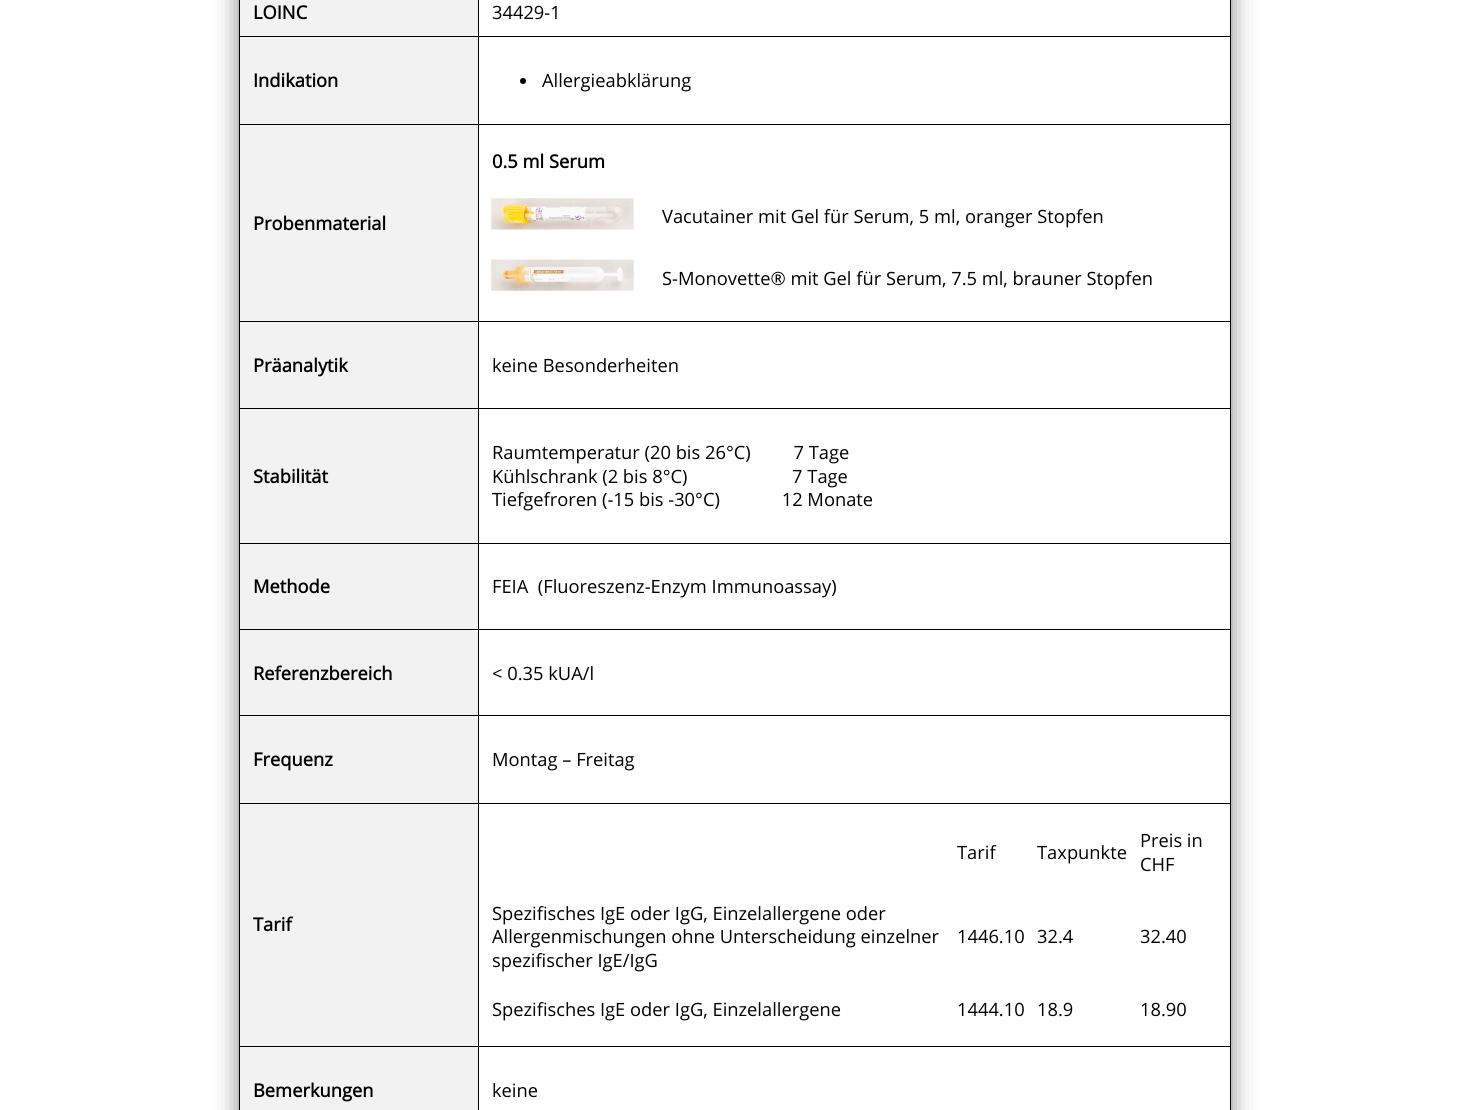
#include <cairo.h>
#include <math.h>
#include <stddef.h>

typedef struct { const char *family; double size; int italic, bold; unsigned color; } style_t;
static cairo_t *ctx;

static void ink(unsigned color) {
    cairo_set_source_rgb(ctx, (color >> 16) / 255.0, (color >> 8 & 255) / 255.0, (color & 255) / 255.0);
}

static void write(double x, double y, const char *s, const style_t *st) {
    cairo_select_font_face(ctx, st->family, st->italic ? CAIRO_FONT_SLANT_ITALIC : CAIRO_FONT_SLANT_NORMAL,
        st->bold ? CAIRO_FONT_WEIGHT_BOLD : CAIRO_FONT_WEIGHT_NORMAL);
    cairo_set_font_size(ctx, st->size);
    ink(st->color);
    cairo_move_to(ctx, x, y);
    cairo_show_text(ctx, s);
}

static void block(double x, double y, double w, double h, unsigned color) {
    ink(color);
    cairo_rectangle(ctx, x, y, w, h);
    cairo_fill(ctx);
}

static void round_path(double x, double y, double w, double h, double r) {
    cairo_new_sub_path(ctx);
    cairo_arc(ctx, x + w - r, y + h - r, r, 0, M_PI / 2);
    cairo_arc(ctx, x + r, y + h - r, r, M_PI / 2, M_PI);
    cairo_arc(ctx, x + r, y + r, r, M_PI, 1.5 * M_PI);
    cairo_arc(ctx, x + w - r, y + r, r, 1.5 * M_PI, 2 * M_PI);
    cairo_close_path(ctx);
}

static void blur_box(double x, double y, double w, double h, double r, double blur, double alpha) {
    cairo_push_group_with_content(ctx, CAIRO_CONTENT_ALPHA);
    cairo_set_operator(ctx, CAIRO_OPERATOR_SOURCE);
    for (int i = 15; i >= -15 && fmin(w, h) + blur * i / 3 > 0; i -= 2) {
        double e = blur * i / 6;
        cairo_set_source_rgba(ctx, 0, 0, 0, alpha * erfc((i - 1) / 8.5) / 2);
        round_path(x - e, y - e, w + 2 * e, h + 2 * e, fmax(0, fmin(r + e + blur * .6, fmin(w, h) / 2 + e)));
        cairo_fill(ctx);
    }
    cairo_pattern_t *soft = cairo_pop_group(ctx);
    cairo_mask(ctx, soft);
    cairo_pattern_destroy(soft);
}

static void paste(const char *path, double x, double y, double w, double h) {
    cairo_surface_t *image = cairo_image_surface_create_from_png(path);
    cairo_save(ctx);
    cairo_set_source_surface(ctx, image, x, y);
    cairo_rectangle(ctx, x, y, w, h);
    cairo_fill(ctx);
    cairo_restore(ctx);
    cairo_surface_destroy(image);
}

static const style_t s1 = {"Open Sans", 18.3, 0, 1, 0x000000};
static const style_t s2 = {"Open Sans", 18.3, 0, 0, 0x000000};

int main(void) {
    cairo_surface_t *surface = cairo_image_surface_create(CAIRO_FORMAT_RGB24, 1469, 1110);
    ctx = cairo_create(surface);
    cairo_font_options_t *options = cairo_font_options_create();
    cairo_font_options_set_hint_metrics(options, CAIRO_HINT_METRICS_OFF);
    cairo_font_options_set_hint_style(options, CAIRO_HINT_STYLE_NONE);
    cairo_set_font_options(ctx, options);
    cairo_set_miter_limit(ctx, 4);
    ink(0xffffff);
    cairo_paint(ctx);
    cairo_save(ctx);
    cairo_set_fill_rule(ctx, CAIRO_FILL_RULE_EVEN_ODD);
    cairo_new_path(ctx);
    cairo_move_to(ctx, 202, 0);
    cairo_line_to(ctx, 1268, 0);
    cairo_line_to(ctx, 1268, 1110);
    cairo_line_to(ctx, 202, 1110);
    cairo_close_path(ctx);
    cairo_move_to(ctx, 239, -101);
    cairo_line_to(ctx, 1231, -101);
    cairo_line_to(ctx, 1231, 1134);
    cairo_line_to(ctx, 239, 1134);
    cairo_close_path(ctx);
    cairo_clip(ctx);
    ink(0x000000);
    blur_box(239, -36, 992, 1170, 0, 12, 0.5);
    cairo_restore(ctx);
    block(240, 0, 238, 124, 0xf2f2f2);
    write(253, 19, "LOINC", &s1);
    block(478, 36, 753, 1, 0x000000);
    block(478, 124, 753, 1, 0x000000);
    block(240, 125, 238, 283, 0xf2f2f2);
    block(478, 321, 753, 1, 0x000000);
    block(478, 408, 753, 1, 0x000000);
    block(478, 543, 753, 1, 0x000000);
    block(478, 629, 753, 1, 0x000000);
    block(478, 715, 753, 1, 0x000000);
    block(478, 803, 753, 1, 0x000000);
    block(478, 1046, 753, 1, 0x000000);
    block(478, 1046, 1, 64, 0x000000);
    block(239, 1046, 240, 1, 0x000000);
    block(478, 803, 1, 245, 0x000000);
    block(239, 803, 240, 1, 0x000000);
    block(478, 715, 1, 89, 0x000000);
    block(239, 715, 240, 1, 0x000000);
    block(478, 629, 1, 87, 0x000000);
    block(239, 629, 240, 1, 0x000000);
    block(478, 543, 1, 87, 0x000000);
    block(239, 543, 240, 1, 0x000000);
    block(478, 408, 1, 136, 0x000000);
    block(239, 408, 240, 1, 0x000000);
    block(478, 321, 1, 88, 0x000000);
    block(239, 321, 240, 1, 0x000000);
    block(478, 124, 1, 199, 0x000000);
    block(239, 124, 240, 1, 0x000000);
    block(478, 36, 1, 89, 0x000000);
    block(239, 36, 240, 1, 0x000000);
    block(478, 0, 1, 38, 0x000000);
    write(492, 19, "34429-1", &s2);
    block(239, 1046, 1, 64, 0x000000);
    block(239, 803, 1, 245, 0x000000);
    block(239, 715, 1, 89, 0x000000);
    block(239, 629, 1, 87, 0x000000);
    block(239, 543, 1, 87, 0x000000);
    block(239, 408, 1, 136, 0x000000);
    block(239, 321, 1, 88, 0x000000);
    block(239, 124, 1, 199, 0x000000);
    block(239, 0, 1, 125, 0x000000);
    write(253, 87, "Indikation", &s1);
    block(1230, 1046, 1, 64, 0x000000);
    block(1230, 803, 1, 245, 0x000000);
    block(1230, 715, 1, 89, 0x000000);
    block(1230, 629, 1, 87, 0x000000);
    block(1230, 543, 1, 87, 0x000000);
    block(1230, 408, 1, 136, 0x000000);
    block(1230, 321, 1, 88, 0x000000);
    block(1230, 124, 1, 199, 0x000000);
    block(1230, 0, 1, 125, 0x000000);
    cairo_new_path(ctx);
    cairo_arc(ctx, 523, 81, 3, 0, 2 * M_PI);
    cairo_fill(ctx);
    write(542, 87, "Allergieabklärung", &s2);
    write(253, 230, "Probenmaterial", &s1);
    write(492, 168, "0.5 ml Serum", &s1);
    paste("pic1.png", 491, 198, 143, 32);
    write(662, 223, "Vacutainer mit Gel für Serum, 5 ml, oranger Stopfen", &s2);
    paste("pic2.png", 491, 259, 143, 32);
    write(662, 285, "S-Monovette® mit Gel für Serum, 7.5 ml, brauner Stopfen", &s2);
    write(253, 372, "Präanalytik", &s1);
    write(492, 372, "keine Besonderheiten", &s2);
    block(240, 409, 238, 134, 0xf2f2f2);
    write(253, 483, "Stabilität", &s1);
    write(492, 459, "Raumtemperatur (20 bis 26°C)         7 Tage", &s2);
    write(492, 483, "Kühlschrank (2 bis 8°C)                      7 Tage", &s2);
    write(492, 506, "Tiefgefroren (-15 bis -30°C)             12 Monate", &s2);
    block(240, 544, 238, 85, 0xf2f2f2);
    write(253, 593, "Methode", &s1);
    write(492, 593, "FEIA  (Fluoreszenz-Enzym Immunoassay)", &s2);
    block(240, 630, 238, 85, 0xf2f2f2);
    write(253, 680, "Referenzbereich", &s1);
    write(492, 680, "< 0.35 kUA/l", &s2);
    block(240, 716, 238, 87, 0xf2f2f2);
    write(253, 766, "Frequenz", &s1);
    write(492, 766, "Montag – Freitag", &s2);
    block(240, 804, 238, 242, 0xf2f2f2);
    write(253, 931, "Tarif", &s1);
    write(957, 859, "Tarif", &s2);
    write(1037, 859, "Taxpunkte", &s2);
    write(1140, 847, "Preis in", &s2);
    write(1140, 871, "CHF", &s2);
    write(492, 920, "Spezifisches IgE oder IgG, Einzelallergene oder", &s2);
    write(492, 943, "Allergenmischungen ohne Unterscheidung einzelner", &s2);
    write(492, 967, "spezifischer IgE/IgG", &s2);
    write(957, 943, "1446.10", &s2);
    write(1037, 943, "32.4", &s2);
    write(1140, 943, "32.40", &s2);
    write(492, 1016, "Spezifisches IgE oder IgG, Einzelallergene", &s2);
    write(957, 1016, "1444.10", &s2);
    write(1037, 1016, "18.9", &s2);
    write(1140, 1016, "18.90", &s2);
    block(240, 1047, 238, 63, 0xf2f2f2);
    write(253, 1097, "Bemerkungen", &s1);
    write(492, 1097, "keine", &s2);
    cairo_surface_write_to_png(surface, "screenshot.png");
    cairo_font_options_destroy(options);
    cairo_destroy(ctx);
    cairo_surface_destroy(surface);
    return 0;
}
